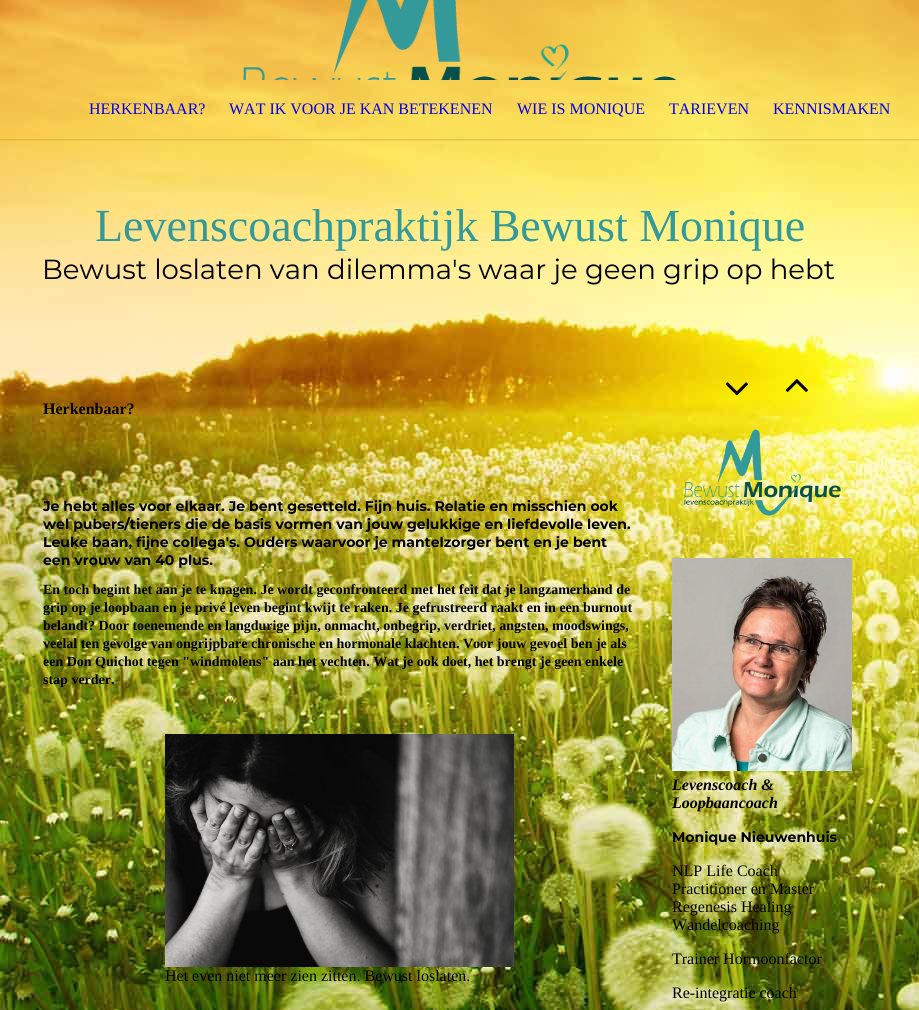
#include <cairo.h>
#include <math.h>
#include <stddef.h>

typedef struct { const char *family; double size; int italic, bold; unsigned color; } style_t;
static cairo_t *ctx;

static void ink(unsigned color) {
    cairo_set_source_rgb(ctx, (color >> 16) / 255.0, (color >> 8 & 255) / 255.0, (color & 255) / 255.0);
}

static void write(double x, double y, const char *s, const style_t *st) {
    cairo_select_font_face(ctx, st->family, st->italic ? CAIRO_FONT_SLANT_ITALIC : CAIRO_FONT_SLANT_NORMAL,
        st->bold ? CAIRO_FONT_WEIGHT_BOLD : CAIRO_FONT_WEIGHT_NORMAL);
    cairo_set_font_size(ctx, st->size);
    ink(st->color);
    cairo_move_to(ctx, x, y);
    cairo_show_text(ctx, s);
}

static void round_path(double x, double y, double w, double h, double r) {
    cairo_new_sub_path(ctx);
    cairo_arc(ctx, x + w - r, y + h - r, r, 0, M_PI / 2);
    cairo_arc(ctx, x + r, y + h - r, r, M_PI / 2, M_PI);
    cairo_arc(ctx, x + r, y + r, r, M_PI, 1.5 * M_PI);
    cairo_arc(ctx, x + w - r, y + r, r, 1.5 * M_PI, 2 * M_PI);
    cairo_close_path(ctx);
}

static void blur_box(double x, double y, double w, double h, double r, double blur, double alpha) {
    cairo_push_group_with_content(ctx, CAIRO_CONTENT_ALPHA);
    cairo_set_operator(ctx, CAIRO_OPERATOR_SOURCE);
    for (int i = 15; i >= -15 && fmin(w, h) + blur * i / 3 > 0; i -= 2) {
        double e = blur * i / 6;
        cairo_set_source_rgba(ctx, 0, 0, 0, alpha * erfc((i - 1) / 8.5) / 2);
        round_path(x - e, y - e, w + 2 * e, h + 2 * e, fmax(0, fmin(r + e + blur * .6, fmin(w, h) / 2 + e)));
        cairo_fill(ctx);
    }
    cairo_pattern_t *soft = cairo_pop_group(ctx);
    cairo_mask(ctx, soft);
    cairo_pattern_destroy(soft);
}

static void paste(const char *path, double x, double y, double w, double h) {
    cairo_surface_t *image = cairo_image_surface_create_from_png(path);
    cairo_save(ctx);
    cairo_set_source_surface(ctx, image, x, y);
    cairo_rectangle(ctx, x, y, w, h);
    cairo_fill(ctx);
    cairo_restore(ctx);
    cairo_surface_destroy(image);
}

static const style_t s1 = {"Liberation Serif", 16, 0, 0, 0x0000ee};
static const style_t s2 = {"Liberation Serif", 46, 0, 0, 0x339999};
static const style_t s3 = {"Montserrat", 27.6, 0, 0, 0x000000};
static const style_t s4 = {"Liberation Serif", 16, 0, 1, 0x000000};
static const style_t s5 = {"Montserrat", 14, 0, 1, 0x000000};
static const style_t s6 = {"Liberation Serif", 14, 0, 1, 0x000000};
static const style_t s7 = {"Liberation Serif", 16, 0, 0, 0x000000};
static const style_t s8 = {"Liberation Serif", 16, 1, 1, 0x000000};

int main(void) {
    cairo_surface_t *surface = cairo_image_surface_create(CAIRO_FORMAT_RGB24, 919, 1010);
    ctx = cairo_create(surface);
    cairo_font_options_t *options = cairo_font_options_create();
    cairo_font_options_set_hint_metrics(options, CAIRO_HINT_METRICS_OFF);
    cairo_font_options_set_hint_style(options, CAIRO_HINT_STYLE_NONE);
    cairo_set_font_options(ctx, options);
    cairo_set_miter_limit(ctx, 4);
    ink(0xffffff);
    cairo_paint(ctx);
    paste("pic1.png", 0, 0, 919, 1010);
    cairo_save(ctx);
    cairo_rectangle(ctx, 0, 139, 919, 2);
    cairo_clip(ctx);
    ink(0x000000);
    blur_box(0, 0, 919, 139, 0, 1.5, 0.3);
    cairo_restore(ctx);
    paste("pic2.png", 243, 0, 434, 80);
    write(89, 114, "HERKENBAAR?", &s1);
    write(229, 114, "WAT IK VOOR JE KAN BETEKENEN", &s1);
    write(517, 114, "WIE IS MONIQUE", &s1);
    write(669, 114, "TARIEVEN", &s1);
    write(773, 114, "KENNISMAKEN", &s1);
    write(95, 241, "Levenscoachpraktijk Bewust Monique", &s2);
    write(42, 279, "Bewust loslaten van dilemma's waar je geen grip op hebt", &s3);
    write(43, 414, "Herkenbaar?", &s4);
    write(43, 511, "Je hebt alles voor elkaar. Je bent gesetteld. Fijn huis. Relatie en misschien ook", &s5);
    write(43, 529, "wel pubers/tieners die de basis vormen van jouw gelukkige en liefdevolle leven.", &s5);
    write(43, 547, "Leuke baan, fijne collega's. Ouders waarvoor je mantelzorger bent en je bent", &s5);
    write(43, 565, "een vrouw van 40 plus.", &s5);
    write(43, 594, "En toch begint het aan je te knagen. Je wordt geconfronteerd met het feit dat je langzamerhand de", &s6);
    write(43, 612, "grip op je loopbaan en je privé leven begint kwijt te raken. Je gefrustreerd raakt en in een burnout", &s6);
    write(43, 630, "belandt? Door toenemende en langdurige pijn, onmacht, onbegrip, verdriet, angsten, moodswings,", &s6);
    write(43, 648, "veelal ten gevolge van ongrijpbare chronische en hormonale klachten. Voor jouw gevoel ben je als", &s6);
    write(43, 666, "een Don Quichot tegen \"windmolens\" aan het vechten. Wat je ook doet, het brengt je geen enkele", &s6);
    write(43, 684, "stap verder.", &s6);
    paste("pic3.png", 165, 734, 349, 233);
    write(165, 981, "Het even niet meer zien zitten. Bewust loslaten.", &s7);
    paste("pic4.png", 725, 382, 23, 14);
    paste("pic5.png", 785, 379, 23, 13);
    paste("pic6.png", 684, 429, 157, 87);
    paste("pic7.png", 672, 558, 180, 213);
    write(672, 790, "Levenscoach &", &s8);
    write(672, 808, "Loopbaancoach", &s8);
    write(672, 842, "Monique Nieuwenhuis", &s5);
    write(672, 876, "NLP Life Coach", &s7);
    write(672, 894, "Practitioner en Master", &s7);
    write(672, 912, "Regenesis Healing", &s7);
    write(672, 930, "Wandelcoaching", &s7);
    write(672, 964, "Trainer Hormoonfactor", &s7);
    write(672, 998, "Re-integratie coach", &s7);
    cairo_surface_write_to_png(surface, "screenshot.png");
    cairo_font_options_destroy(options);
    cairo_destroy(ctx);
    cairo_surface_destroy(surface);
    return 0;
}
